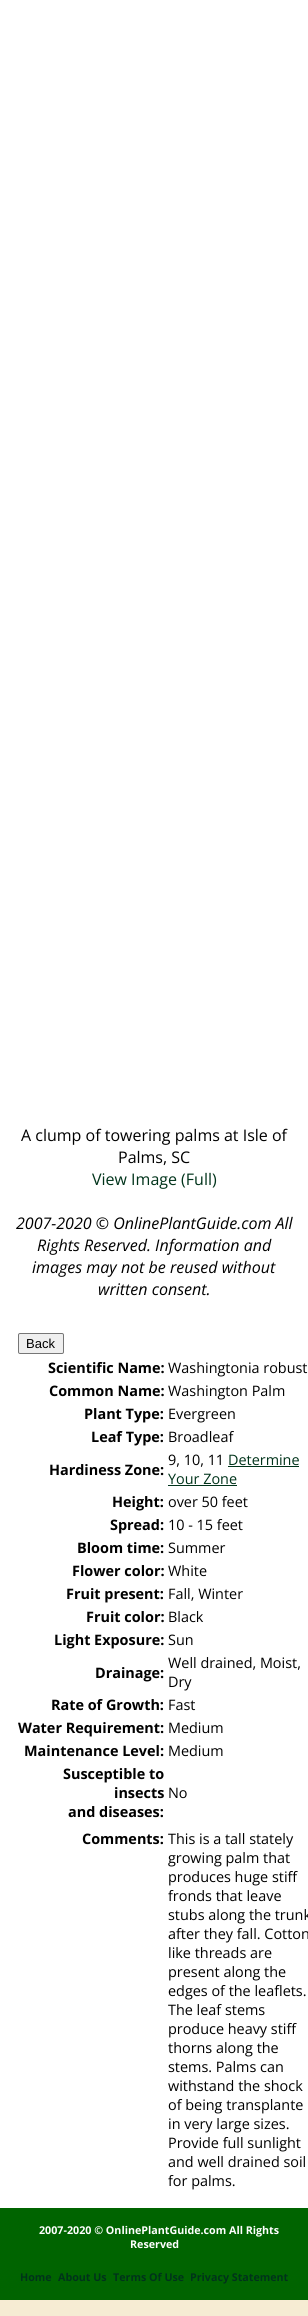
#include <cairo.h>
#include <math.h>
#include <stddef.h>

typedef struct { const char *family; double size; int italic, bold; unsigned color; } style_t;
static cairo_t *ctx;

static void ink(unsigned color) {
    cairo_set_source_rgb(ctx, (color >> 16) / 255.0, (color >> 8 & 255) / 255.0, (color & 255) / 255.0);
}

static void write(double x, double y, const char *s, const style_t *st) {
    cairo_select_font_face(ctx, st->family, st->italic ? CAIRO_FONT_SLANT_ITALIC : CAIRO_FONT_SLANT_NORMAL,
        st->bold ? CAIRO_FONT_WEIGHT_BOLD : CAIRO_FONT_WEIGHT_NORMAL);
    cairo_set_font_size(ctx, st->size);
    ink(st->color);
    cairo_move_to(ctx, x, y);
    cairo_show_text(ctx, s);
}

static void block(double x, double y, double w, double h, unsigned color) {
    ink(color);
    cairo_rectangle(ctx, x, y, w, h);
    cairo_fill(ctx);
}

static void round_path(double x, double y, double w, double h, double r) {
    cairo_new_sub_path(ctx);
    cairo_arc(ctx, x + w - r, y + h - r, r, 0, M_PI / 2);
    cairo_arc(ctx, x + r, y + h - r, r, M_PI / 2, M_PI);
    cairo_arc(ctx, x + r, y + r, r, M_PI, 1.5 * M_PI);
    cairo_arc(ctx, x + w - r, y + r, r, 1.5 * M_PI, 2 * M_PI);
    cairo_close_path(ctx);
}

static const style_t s1 = {"Open Sans", 16, 0, 0, 0x000000};
static const style_t s2 = {"Open Sans", 16, 0, 0, 0x00331a};
static const style_t s3 = {"Open Sans", 16, 1, 0, 0x000000};
static const style_t s4 = {"Liberation Sans", 13, 0, 0, 0x000000};
static const style_t s5 = {"Open Sans", 14.4, 0, 1, 0x000000};
static const style_t s6 = {"Open Sans", 14.4, 0, 0, 0x000000};
static const style_t s7 = {"Open Sans", 14.4, 0, 0, 0x00331a};
static const style_t s8 = {"Open Sans", 10.7, 0, 1, 0xffffff};
static const style_t s9 = {"Open Sans", 10.7, 0, 1, 0x00331a};

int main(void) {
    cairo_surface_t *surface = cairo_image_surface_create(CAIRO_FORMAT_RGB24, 308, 2316);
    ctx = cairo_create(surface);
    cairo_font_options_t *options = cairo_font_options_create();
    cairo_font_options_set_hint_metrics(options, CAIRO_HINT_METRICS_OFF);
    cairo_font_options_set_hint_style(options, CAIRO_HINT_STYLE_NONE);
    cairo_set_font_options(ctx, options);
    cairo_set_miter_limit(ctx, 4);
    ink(0xf6ecd3);
    cairo_paint(ctx);
    block(0, 0, 308, 2208, 0xffffff);
    write(21, 1141, "A clump of towering palms at Isle of", &s1);
    write(118, 1163, "Palms, SC", &s1);
    write(92, 1185, "View Image (Full)", &s2);
    write(16, 1229, "2007-2020 © OnlinePlantGuide.com All", &s3);
    write(37, 1251, "Rights Reserved. Information and", &s3);
    write(32, 1273, "images may not be reused without", &s3);
    write(98, 1295, "written consent.", &s3);
    ink(0xefefef);
    round_path(18.5, 1333.5, 45, 20, 1.5);
    cairo_fill_preserve(ctx);
    ink(0x767676);
    cairo_set_line_width(ctx, 1);
    cairo_stroke(ctx);
    write(26, 1348, "Back", &s4);
    write(48, 1373, "Scientific Name:", &s5);
    write(168, 1373, "Washingtonia robust", &s6);
    write(49, 1396, "Common Name:", &s5);
    write(168, 1396, "Washington Palm", &s6);
    write(84, 1419, "Plant Type:", &s5);
    write(168, 1419, "Evergreen", &s6);
    write(91, 1442, "Leaf Type:", &s5);
    write(168, 1442, "Broadleaf", &s6);
    write(49, 1475, "Hardiness Zone:", &s5);
    write(168, 1465, "9, 10, 11", &s6);
    write(228, 1465, "Determine", &s7);
    block(228, 1466, 71, 1, 0x00331a);
    write(168, 1484, "Your Zone", &s7);
    block(168, 1485, 69, 1, 0x00331a);
    write(112, 1507, "Height:", &s5);
    write(168, 1507, "over 50 feet", &s6);
    write(110, 1530, "Spread:", &s5);
    write(168, 1530, "10 - 15 feet", &s6);
    write(77, 1553, "Bloom time:", &s5);
    write(168, 1553, "Summer", &s6);
    write(72, 1576, "Flower color:", &s5);
    write(168, 1576, "White", &s6);
    write(66, 1599, "Fruit present:", &s5);
    write(168, 1599, "Fall, Winter", &s6);
    write(86, 1622, "Fruit color:", &s5);
    write(168, 1622, "Black", &s6);
    write(54, 1645, "Light Exposure:", &s5);
    write(168, 1645, "Sun", &s6);
    write(95, 1678, "Drainage:", &s5);
    write(168, 1668, "Well drained, Moist,", &s6);
    write(168, 1687, "Dry", &s6);
    write(51, 1710, "Rate of Growth:", &s5);
    write(168, 1710, "Fast", &s6);
    write(18, 1733, "Water Requirement:", &s5);
    write(168, 1733, "Medium", &s6);
    write(24, 1756, "Maintenance Level:", &s5);
    write(168, 1756, "Medium", &s6);
    write(63, 1779, "Susceptible to", &s5);
    write(114, 1798, "insects", &s5);
    write(68, 1817, "and diseases:", &s5);
    write(168, 1798, "No", &s6);
    write(82, 1844, "Comments:", &s5);
    write(168, 1844, "This is a tall stately", &s6);
    write(168, 1863, "growing palm that", &s6);
    write(168, 1882, "produces huge stiff", &s6);
    write(168, 1901, "fronds that leave", &s6);
    write(168, 1920, "stubs along the trunk", &s6);
    write(168, 1939, "after they fall. Cotton", &s6);
    write(168, 1958, "like threads are", &s6);
    write(168, 1977, "present along the", &s6);
    write(168, 1996, "edges of the leaflets.", &s6);
    write(168, 2015, "The leaf stems", &s6);
    write(168, 2034, "produce heavy stiff", &s6);
    write(168, 2053, "thorns along the", &s6);
    write(168, 2072, "stems. Palms can", &s6);
    write(168, 2091, "withstand the shock", &s6);
    write(168, 2110, "of being transplante", &s6);
    write(168, 2129, "in very large sizes.", &s6);
    write(168, 2148, "Provide full sunlight", &s6);
    write(168, 2167, "and well drained soil", &s6);
    write(168, 2186, "for palms.", &s6);
    block(0, 2208, 308, 92, 0x006400);
    write(39, 2234, "2007-2020 © OnlinePlantGuide.com All Rights", &s8);
    write(130, 2248, "Reserved", &s8);
    write(20, 2281, "Home", &s9);
    write(58, 2281, "About Us", &s9);
    write(113, 2281, "Terms Of Use", &s9);
    write(190, 2281, "Privacy Statement", &s9);
    cairo_surface_write_to_png(surface, "screenshot.png");
    cairo_font_options_destroy(options);
    cairo_destroy(ctx);
    cairo_surface_destroy(surface);
    return 0;
}
